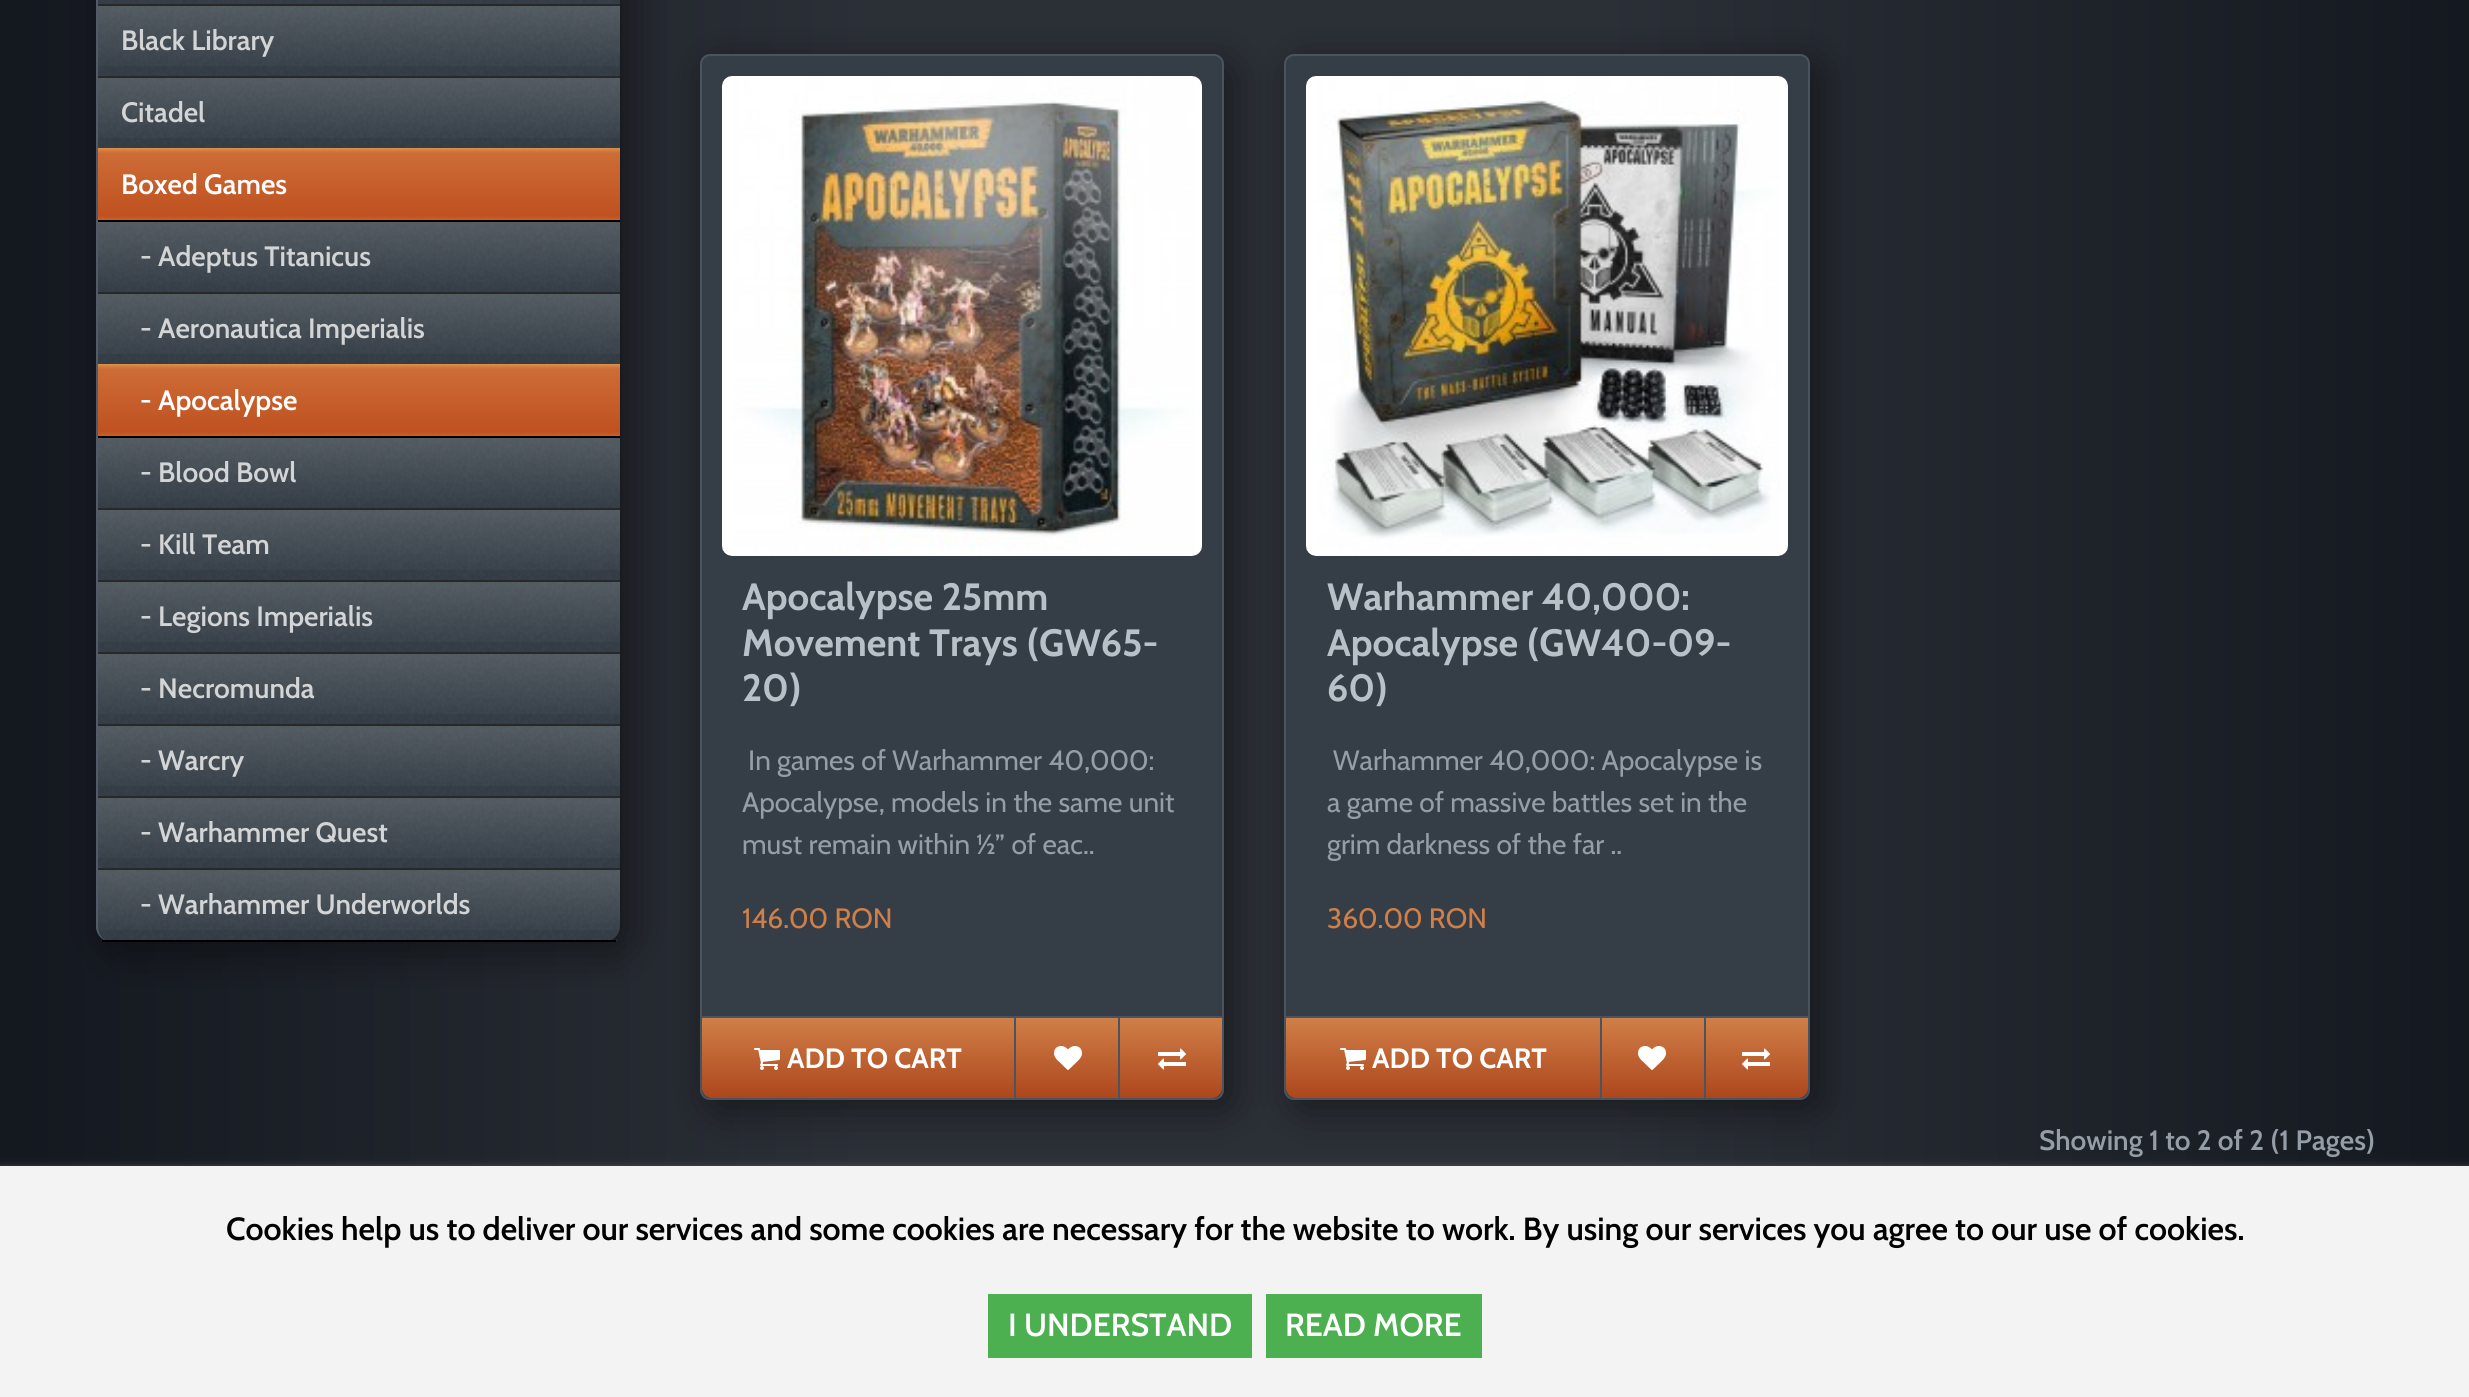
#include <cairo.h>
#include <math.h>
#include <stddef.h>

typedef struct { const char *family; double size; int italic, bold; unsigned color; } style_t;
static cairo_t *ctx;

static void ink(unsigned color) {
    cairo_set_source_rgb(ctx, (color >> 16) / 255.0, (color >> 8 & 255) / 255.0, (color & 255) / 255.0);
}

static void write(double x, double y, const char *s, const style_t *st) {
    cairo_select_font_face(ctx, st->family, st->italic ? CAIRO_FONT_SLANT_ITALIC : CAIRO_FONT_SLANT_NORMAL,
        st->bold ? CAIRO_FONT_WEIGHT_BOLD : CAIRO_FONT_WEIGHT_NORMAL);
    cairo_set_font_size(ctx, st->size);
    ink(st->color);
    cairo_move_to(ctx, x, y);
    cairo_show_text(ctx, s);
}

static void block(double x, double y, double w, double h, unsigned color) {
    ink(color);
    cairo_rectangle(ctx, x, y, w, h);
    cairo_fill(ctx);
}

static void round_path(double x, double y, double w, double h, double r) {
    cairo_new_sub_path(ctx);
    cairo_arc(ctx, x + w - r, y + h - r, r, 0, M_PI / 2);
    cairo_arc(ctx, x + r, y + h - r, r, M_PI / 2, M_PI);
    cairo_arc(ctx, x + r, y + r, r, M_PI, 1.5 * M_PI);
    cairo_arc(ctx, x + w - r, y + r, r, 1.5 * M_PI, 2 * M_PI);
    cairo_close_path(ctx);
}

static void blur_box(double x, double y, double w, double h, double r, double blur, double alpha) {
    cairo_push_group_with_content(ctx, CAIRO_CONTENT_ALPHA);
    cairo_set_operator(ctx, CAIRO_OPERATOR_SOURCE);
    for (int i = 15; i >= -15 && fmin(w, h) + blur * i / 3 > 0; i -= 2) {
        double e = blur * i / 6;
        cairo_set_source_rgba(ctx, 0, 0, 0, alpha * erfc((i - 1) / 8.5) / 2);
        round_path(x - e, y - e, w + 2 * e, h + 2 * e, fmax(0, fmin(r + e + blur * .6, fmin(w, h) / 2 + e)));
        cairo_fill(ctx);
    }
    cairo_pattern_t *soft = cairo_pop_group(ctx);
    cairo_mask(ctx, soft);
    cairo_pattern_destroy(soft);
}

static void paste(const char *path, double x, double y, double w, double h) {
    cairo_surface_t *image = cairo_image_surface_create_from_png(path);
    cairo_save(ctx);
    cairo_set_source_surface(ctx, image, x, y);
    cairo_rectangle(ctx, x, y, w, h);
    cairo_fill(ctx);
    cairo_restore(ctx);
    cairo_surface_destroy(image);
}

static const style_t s1 = {"Cabin SemiBold", 28, 0, 0, 0xd3d4d5};
static const style_t s2 = {"Cabin SemiBold", 28, 0, 0, 0xffffff};
static const style_t s3 = {"Cabin", 38, 0, 1, 0xb8c0c8};
static const style_t s4 = {"Cabin", 28, 0, 0, 0x959da6};
static const style_t s5 = {"Cabin", 28, 0, 0, 0xd07f48};
static const style_t s6 = {"Cabin", 28, 0, 1, 0xffffff};
static const style_t s7 = {"Cabin SemiBold", 28, 0, 0, 0x959da6};
static const style_t s8 = {"Cabin SemiBold", 32, 0, 0, 0x000000};
static const style_t s9 = {"Cabin SemiBold", 32, 0, 0, 0xffffff};

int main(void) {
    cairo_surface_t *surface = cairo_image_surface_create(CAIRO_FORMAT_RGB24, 2469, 1397);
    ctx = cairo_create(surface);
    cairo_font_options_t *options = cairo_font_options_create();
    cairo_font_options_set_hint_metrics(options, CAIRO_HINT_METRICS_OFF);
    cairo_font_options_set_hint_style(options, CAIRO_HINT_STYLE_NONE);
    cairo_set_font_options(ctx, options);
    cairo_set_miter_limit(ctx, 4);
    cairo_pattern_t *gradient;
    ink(0xffffff);
    cairo_paint(ctx);
    gradient = cairo_pattern_create_linear(0, 392, 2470, 392);
    cairo_pattern_add_color_stop_rgba(gradient, 0, 0.078, 0.094, 0.122, 1);
    cairo_pattern_add_color_stop_rgba(gradient, 0.01, 0.078, 0.094, 0.122, 1);
    cairo_pattern_add_color_stop_rgba(gradient, 0.35, 0.169, 0.184, 0.212, 1);
    cairo_pattern_add_color_stop_rgba(gradient, 0.65, 0.169, 0.184, 0.212, 1);
    cairo_pattern_add_color_stop_rgba(gradient, 1, 0.078, 0.094, 0.122, 1);
    cairo_set_source(ctx, gradient);
    cairo_pattern_destroy(gradient);
    cairo_rectangle(ctx, 0, 0, 2469, 1166);
    cairo_fill(ctx);
    ink(0x000000);
    blur_box(110, -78, 516, 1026, 12, 22, 0.5);
    paste("pic1.png", 96, 0, 524, 940);
    ink(0x525b68);
    cairo_new_path(ctx);
    cairo_move_to(ctx, 96, -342);
    cairo_line_to(ctx, 96, 926);
    cairo_curve_to(ctx, 96, 935, 103, 942, 112, 942);
    cairo_curve_to(ctx, 104, 942, 98, 935, 98, 926);
    cairo_line_to(ctx, 98, -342);
    cairo_curve_to(ctx, 98, -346, 100, -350, 102, -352);
    cairo_line_to(ctx, 101, -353);
    cairo_curve_to(ctx, 98, -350, 96, -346, 96, -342);
    cairo_close_path(ctx);
    cairo_fill(ctx);
    block(98, 4, 522, 2, 0x000000);
    gradient = cairo_pattern_create_linear(359, 4, 359, 76);
    cairo_pattern_add_color_stop_rgba(gradient, 0, 1, 1, 1, 0.16);
    cairo_pattern_add_color_stop_rgba(gradient, 1, 1, 1, 1, 0);
    cairo_set_source(ctx, gradient);
    cairo_pattern_destroy(gradient);
    cairo_rectangle(ctx, 98, 4, 522, 62);
    cairo_fill(ctx);
    block(98, 76, 522, 2, 0x000000);
    write(121, 50, "Black Library", &s1);
    gradient = cairo_pattern_create_linear(359, 76, 359, 148);
    cairo_pattern_add_color_stop_rgba(gradient, 0, 1, 1, 1, 0.16);
    cairo_pattern_add_color_stop_rgba(gradient, 1, 1, 1, 1, 0);
    cairo_set_source(ctx, gradient);
    cairo_pattern_destroy(gradient);
    cairo_rectangle(ctx, 98, 76, 522, 62);
    cairo_fill(ctx);
    write(121, 122, "Citadel", &s1);
    gradient = cairo_pattern_create_linear(359, 148, 359, 220);
    cairo_pattern_add_color_stop_rgba(gradient, 0, 0.871, 0.565, 0.286, 1);
    cairo_pattern_add_color_stop_rgba(gradient, 0.07, 0.804, 0.424, 0.212, 1);
    cairo_pattern_add_color_stop_rgba(gradient, 0.94, 0.749, 0.318, 0.125, 1);
    cairo_pattern_add_color_stop_rgba(gradient, 1, 0.788, 0.38, 0.157, 1);
    cairo_set_source(ctx, gradient);
    cairo_pattern_destroy(gradient);
    cairo_rectangle(ctx, 98, 148, 522, 72);
    cairo_fill(ctx);
    block(98, 220, 522, 2, 0x000000);
    write(121, 194, "Boxed Games", &s2);
    block(98, 292, 522, 2, 0x000000);
    write(140, 266, "- Adeptus Titanicus", &s1);
    gradient = cairo_pattern_create_linear(359, 292, 359, 364);
    cairo_pattern_add_color_stop_rgba(gradient, 0, 1, 1, 1, 0.16);
    cairo_pattern_add_color_stop_rgba(gradient, 1, 1, 1, 1, 0);
    cairo_set_source(ctx, gradient);
    cairo_pattern_destroy(gradient);
    cairo_rectangle(ctx, 98, 292, 522, 62);
    cairo_fill(ctx);
    write(140, 338, "- Aeronautica Imperialis", &s1);
    gradient = cairo_pattern_create_linear(359, 364, 359, 436);
    cairo_pattern_add_color_stop_rgba(gradient, 0, 0.871, 0.565, 0.286, 1);
    cairo_pattern_add_color_stop_rgba(gradient, 0.07, 0.804, 0.424, 0.212, 1);
    cairo_pattern_add_color_stop_rgba(gradient, 0.94, 0.749, 0.318, 0.125, 1);
    cairo_pattern_add_color_stop_rgba(gradient, 1, 0.788, 0.38, 0.157, 1);
    cairo_set_source(ctx, gradient);
    cairo_pattern_destroy(gradient);
    cairo_rectangle(ctx, 98, 364, 522, 72);
    cairo_fill(ctx);
    block(98, 436, 522, 2, 0x000000);
    write(140, 410, "- Apocalypse", &s2);
    block(98, 508, 522, 2, 0x000000);
    write(140, 482, "- Blood Bowl", &s1);
    gradient = cairo_pattern_create_linear(359, 508, 359, 580);
    cairo_pattern_add_color_stop_rgba(gradient, 0, 1, 1, 1, 0.16);
    cairo_pattern_add_color_stop_rgba(gradient, 1, 1, 1, 1, 0);
    cairo_set_source(ctx, gradient);
    cairo_pattern_destroy(gradient);
    cairo_rectangle(ctx, 98, 508, 522, 62);
    cairo_fill(ctx);
    block(98, 580, 522, 2, 0x000000);
    write(140, 554, "- Kill Team", &s1);
    gradient = cairo_pattern_create_linear(359, 580, 359, 652);
    cairo_pattern_add_color_stop_rgba(gradient, 0, 1, 1, 1, 0.16);
    cairo_pattern_add_color_stop_rgba(gradient, 1, 1, 1, 1, 0);
    cairo_set_source(ctx, gradient);
    cairo_pattern_destroy(gradient);
    cairo_rectangle(ctx, 98, 580, 522, 62);
    cairo_fill(ctx);
    block(98, 652, 522, 2, 0x000000);
    write(140, 626, "- Legions Imperialis", &s1);
    gradient = cairo_pattern_create_linear(359, 652, 359, 724);
    cairo_pattern_add_color_stop_rgba(gradient, 0, 1, 1, 1, 0.16);
    cairo_pattern_add_color_stop_rgba(gradient, 1, 1, 1, 1, 0);
    cairo_set_source(ctx, gradient);
    cairo_pattern_destroy(gradient);
    cairo_rectangle(ctx, 98, 652, 522, 62);
    cairo_fill(ctx);
    block(98, 724, 522, 2, 0x000000);
    write(140, 698, "- Necromunda", &s1);
    gradient = cairo_pattern_create_linear(359, 724, 359, 796);
    cairo_pattern_add_color_stop_rgba(gradient, 0, 1, 1, 1, 0.16);
    cairo_pattern_add_color_stop_rgba(gradient, 1, 1, 1, 1, 0);
    cairo_set_source(ctx, gradient);
    cairo_pattern_destroy(gradient);
    cairo_rectangle(ctx, 98, 724, 522, 62);
    cairo_fill(ctx);
    block(98, 796, 522, 2, 0x000000);
    write(140, 770, "- Warcry", &s1);
    gradient = cairo_pattern_create_linear(359, 796, 359, 868);
    cairo_pattern_add_color_stop_rgba(gradient, 0, 1, 1, 1, 0.16);
    cairo_pattern_add_color_stop_rgba(gradient, 1, 1, 1, 1, 0);
    cairo_set_source(ctx, gradient);
    cairo_pattern_destroy(gradient);
    cairo_rectangle(ctx, 98, 796, 522, 62);
    cairo_fill(ctx);
    block(98, 868, 522, 2, 0x000000);
    write(140, 842, "- Warhammer Quest", &s1);
    gradient = cairo_pattern_create_linear(359, 868, 359, 940);
    cairo_pattern_add_color_stop_rgba(gradient, 0, 1, 1, 1, 0.16);
    cairo_pattern_add_color_stop_rgba(gradient, 1, 1, 1, 1, 0);
    cairo_set_source(ctx, gradient);
    cairo_pattern_destroy(gradient);
    cairo_rectangle(ctx, 98, 868, 522, 62);
    cairo_fill(ctx);
    cairo_save(ctx);
    cairo_new_path(ctx);
    cairo_move_to(ctx, 98, 868);
    cairo_line_to(ctx, 620, 868);
    cairo_line_to(ctx, 620, 934);
    cairo_curve_to(ctx, 620, 938.5, 616.5, 942, 612, 942);
    cairo_line_to(ctx, 106, 942);
    cairo_curve_to(ctx, 101.5, 942, 98, 938.5, 98, 934);
    cairo_close_path(ctx);
    cairo_clip(ctx);
    gradient = cairo_pattern_create_linear(359, 940, 359, 1012);
    cairo_pattern_add_color_stop_rgba(gradient, 0, 1, 1, 1, 0.16);
    cairo_pattern_add_color_stop_rgba(gradient, 1, 1, 1, 1, 0);
    cairo_set_source(ctx, gradient);
    cairo_pattern_destroy(gradient);
    cairo_rectangle(ctx, 98, 940, 522, 1);
    cairo_fill(ctx);
    cairo_restore(ctx);
    block(102, 940, 514, 2, 0x000000);
    write(140, 914, "- Warhammer Underworlds", &s1);
    ink(0x000000);
    blur_box(714, 68, 516, 1038, 6, 22, 0.5);
    ink(0x353e47);
    round_path(701, 55, 522, 1044, 9);
    cairo_fill_preserve(ctx);
    ink(0x4a545e);
    cairo_stroke(ctx);
    paste("pic2.png", 722, 76, 480, 480);
    write(742, 610, "Apocalypse 25mm", &s3);
    write(742, 656, "Movement Trays (GW65-", &s3);
    write(742, 701, "20)", &s3);
    write(748, 770, "In games of Warhammer 40,000:", &s4);
    write(742, 812, "Apocalypse, models in the same unit", &s4);
    write(742, 854, "must remain within ½” of eac..", &s4);
    write(742, 928, "146.00 RON", &s5);
    block(702, 1016, 520, 2, 0x4a545e);
    gradient = cairo_pattern_create_linear(858, 1018, 858, 1098);
    cairo_pattern_add_color_stop_rgba(gradient, 0, 0.816, 0.498, 0.282, 1);
    cairo_pattern_add_color_stop_rgba(gradient, 1, 0.678, 0.275, 0.114, 1);
    cairo_set_source(ctx, gradient);
    cairo_pattern_destroy(gradient);
    cairo_new_path(ctx);
    cairo_move_to(ctx, 702, 1018);
    cairo_line_to(ctx, 1014, 1018);
    cairo_line_to(ctx, 1014, 1098);
    cairo_line_to(ctx, 712, 1098);
    cairo_curve_to(ctx, 706.5, 1098, 702, 1093.5, 702, 1088);
    cairo_close_path(ctx);
    cairo_fill(ctx);
    paste("pic3.png", 754, 1048, 26, 22);
    write(787, 1068, "ADD TO CART", &s6);
    gradient = cairo_pattern_create_linear(1067, 1018, 1067, 1098);
    cairo_pattern_add_color_stop_rgba(gradient, 0, 0.816, 0.498, 0.282, 1);
    cairo_pattern_add_color_stop_rgba(gradient, 1, 0.678, 0.275, 0.114, 1);
    cairo_set_source(ctx, gradient);
    cairo_pattern_destroy(gradient);
    cairo_rectangle(ctx, 1016, 1018, 102, 80);
    cairo_fill(ctx);
    block(1014, 1018, 2, 80, 0x4a545e);
    paste("pic4.png", 1054, 1046, 28, 24);
    gradient = cairo_pattern_create_linear(1171, 1018, 1171, 1098);
    cairo_pattern_add_color_stop_rgba(gradient, 0, 0.816, 0.498, 0.282, 1);
    cairo_pattern_add_color_stop_rgba(gradient, 1, 0.678, 0.275, 0.114, 1);
    cairo_set_source(ctx, gradient);
    cairo_pattern_destroy(gradient);
    cairo_new_path(ctx);
    cairo_move_to(ctx, 1118, 1018);
    cairo_line_to(ctx, 1222, 1018);
    cairo_line_to(ctx, 1222, 1088);
    cairo_curve_to(ctx, 1222, 1093.5, 1217.5, 1098, 1212, 1098);
    cairo_line_to(ctx, 1118, 1098);
    cairo_close_path(ctx);
    cairo_fill(ctx);
    block(1118, 1018, 2, 80, 0x4a545e);
    paste("pic5.png", 1158, 1048, 28, 22);
    ink(0x000000);
    blur_box(1298, 68, 518, 1038, 6, 22, 0.5);
    ink(0x353e47);
    round_path(1285, 55, 524, 1044, 9);
    cairo_fill_preserve(ctx);
    ink(0x4a545e);
    cairo_stroke(ctx);
    paste("pic6.png", 1306, 76, 482, 480);
    write(1327, 610, "Warhammer 40,000:", &s3);
    write(1327, 656, "Apocalypse (GW40-09-", &s3);
    write(1327, 701, "60)", &s3);
    write(1333, 770, "Warhammer 40,000: Apocalypse is", &s4);
    write(1327, 812, "a game of massive battles set in the", &s4);
    write(1327, 854, "grim darkness of the far ..", &s4);
    write(1327, 928, "360.00 RON", &s5);
    block(1286, 1016, 522, 2, 0x4a545e);
    gradient = cairo_pattern_create_linear(1443, 1018, 1443, 1098);
    cairo_pattern_add_color_stop_rgba(gradient, 0, 0.816, 0.498, 0.282, 1);
    cairo_pattern_add_color_stop_rgba(gradient, 1, 0.678, 0.275, 0.114, 1);
    cairo_set_source(ctx, gradient);
    cairo_pattern_destroy(gradient);
    cairo_new_path(ctx);
    cairo_move_to(ctx, 1286, 1018);
    cairo_line_to(ctx, 1600, 1018);
    cairo_line_to(ctx, 1600, 1098);
    cairo_line_to(ctx, 1296, 1098);
    cairo_curve_to(ctx, 1290.5, 1098, 1286, 1093.5, 1286, 1088);
    cairo_close_path(ctx);
    cairo_fill(ctx);
    paste("pic3.png", 1340, 1048, 26, 22);
    write(1372, 1068, "ADD TO CART", &s6);
    gradient = cairo_pattern_create_linear(1653, 1018, 1653, 1098);
    cairo_pattern_add_color_stop_rgba(gradient, 0, 0.816, 0.498, 0.282, 1);
    cairo_pattern_add_color_stop_rgba(gradient, 1, 0.678, 0.275, 0.114, 1);
    cairo_set_source(ctx, gradient);
    cairo_pattern_destroy(gradient);
    cairo_rectangle(ctx, 1602, 1018, 102, 80);
    cairo_fill(ctx);
    block(1600, 1018, 2, 80, 0x4a545e);
    paste("pic4.png", 1638, 1046, 28, 24);
    gradient = cairo_pattern_create_linear(1757, 1018, 1757, 1098);
    cairo_pattern_add_color_stop_rgba(gradient, 0, 0.816, 0.498, 0.282, 1);
    cairo_pattern_add_color_stop_rgba(gradient, 1, 0.678, 0.275, 0.114, 1);
    cairo_set_source(ctx, gradient);
    cairo_pattern_destroy(gradient);
    cairo_new_path(ctx);
    cairo_move_to(ctx, 1704, 1018);
    cairo_line_to(ctx, 1808, 1018);
    cairo_line_to(ctx, 1808, 1088);
    cairo_curve_to(ctx, 1808, 1093.5, 1803.5, 1098, 1798, 1098);
    cairo_line_to(ctx, 1704, 1098);
    cairo_close_path(ctx);
    cairo_fill(ctx);
    block(1704, 1018, 2, 80, 0x4a545e);
    paste("pic5.png", 1742, 1048, 28, 22);
    write(2039, 1150, "Showing 1 to 2 of 2 (1 Pages)", &s7);
    ink(0x808080);
    blur_box(0, 1170, 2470, 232, 0, 5, 1);
    block(0, 1166, 2469, 231, 0xf3f3f3);
    write(226, 1240, "Cookies help us to deliver our services and some cookies are necessary for the website to work. By using our services you agree to our use of cookies.", &s8);
    block(988, 1294, 264, 64, 0x4caf50);
    write(1008, 1336, "I UNDERSTAND", &s9);
    block(1266, 1294, 216, 64, 0x4caf50);
    write(1285, 1336, "READ MORE", &s9);
    cairo_surface_write_to_png(surface, "screenshot.png");
    cairo_font_options_destroy(options);
    cairo_destroy(ctx);
    cairo_surface_destroy(surface);
    return 0;
}
